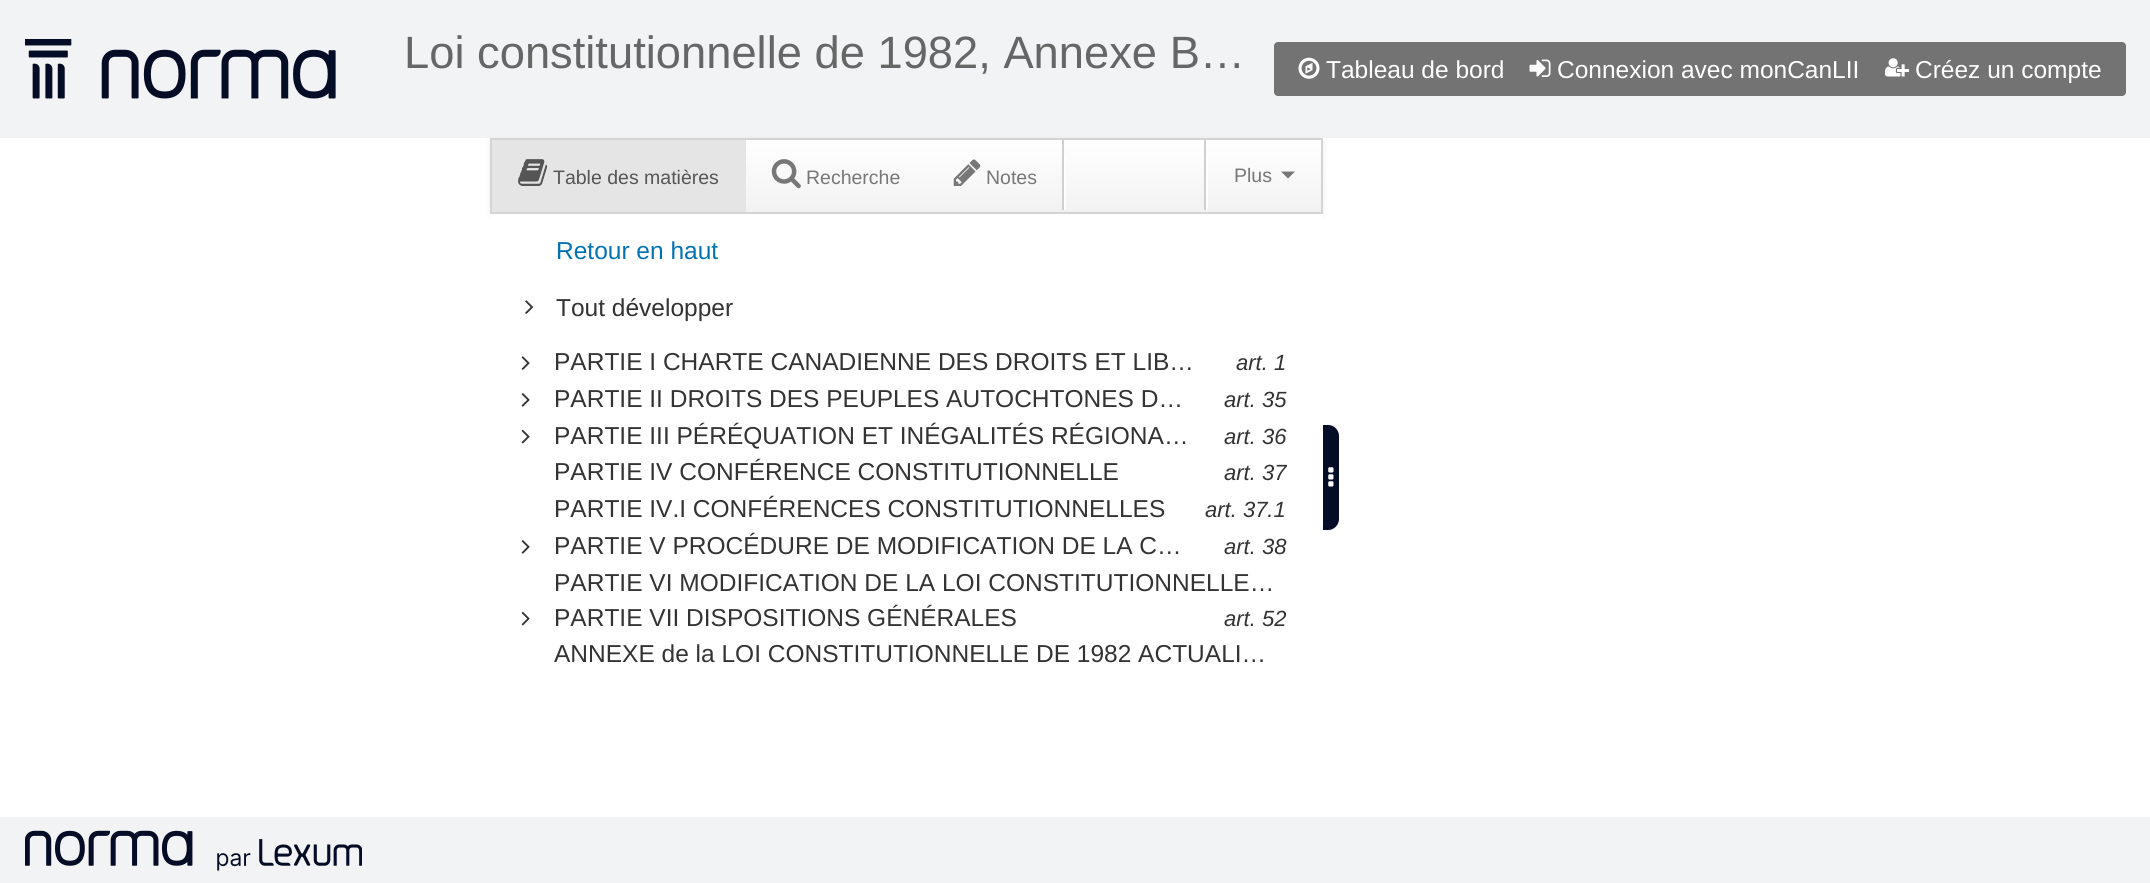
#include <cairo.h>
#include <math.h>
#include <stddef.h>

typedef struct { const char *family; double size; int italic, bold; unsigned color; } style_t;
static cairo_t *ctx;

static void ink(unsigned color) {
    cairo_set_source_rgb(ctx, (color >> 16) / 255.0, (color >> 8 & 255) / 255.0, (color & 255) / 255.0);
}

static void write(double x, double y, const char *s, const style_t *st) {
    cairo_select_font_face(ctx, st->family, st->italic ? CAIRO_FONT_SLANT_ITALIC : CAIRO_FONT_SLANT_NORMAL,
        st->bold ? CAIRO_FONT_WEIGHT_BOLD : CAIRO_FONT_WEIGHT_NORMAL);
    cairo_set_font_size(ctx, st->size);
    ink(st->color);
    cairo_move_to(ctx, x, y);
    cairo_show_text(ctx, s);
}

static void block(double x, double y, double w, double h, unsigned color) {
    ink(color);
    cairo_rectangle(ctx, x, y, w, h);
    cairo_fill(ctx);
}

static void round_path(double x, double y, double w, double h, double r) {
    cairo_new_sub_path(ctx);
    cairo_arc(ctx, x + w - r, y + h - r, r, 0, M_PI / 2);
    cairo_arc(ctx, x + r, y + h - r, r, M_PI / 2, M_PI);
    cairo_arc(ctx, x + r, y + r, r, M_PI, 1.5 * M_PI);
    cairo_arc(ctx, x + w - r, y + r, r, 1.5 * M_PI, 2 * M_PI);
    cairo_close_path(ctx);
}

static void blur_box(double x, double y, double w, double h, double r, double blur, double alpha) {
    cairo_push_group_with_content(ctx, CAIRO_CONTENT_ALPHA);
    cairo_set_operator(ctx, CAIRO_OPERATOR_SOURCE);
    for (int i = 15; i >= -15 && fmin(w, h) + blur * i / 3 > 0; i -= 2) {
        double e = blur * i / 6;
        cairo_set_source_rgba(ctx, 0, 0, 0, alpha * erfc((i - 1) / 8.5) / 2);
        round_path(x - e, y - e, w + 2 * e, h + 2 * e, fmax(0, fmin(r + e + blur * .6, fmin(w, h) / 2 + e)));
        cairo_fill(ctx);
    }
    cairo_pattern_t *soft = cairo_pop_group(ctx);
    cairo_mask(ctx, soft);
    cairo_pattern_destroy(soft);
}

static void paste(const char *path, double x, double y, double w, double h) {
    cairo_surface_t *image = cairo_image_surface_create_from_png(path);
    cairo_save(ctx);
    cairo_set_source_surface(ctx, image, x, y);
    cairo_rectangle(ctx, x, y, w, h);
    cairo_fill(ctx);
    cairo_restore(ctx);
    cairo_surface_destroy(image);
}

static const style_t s1 = {"Liberation Sans", 45.3, 0, 0, 0x666666};
static const style_t s2 = {"Liberation Sans", 24.5, 0, 0, 0xffffff};
static const style_t s3 = {"Liberation Sans", 19.5, 0, 0, 0x555555};
static const style_t s4 = {"Liberation Sans", 19.5, 0, 0, 0x777777};
static const style_t s5 = {"Liberation Sans", 24.5, 0, 0, 0x0272b1};
static const style_t s6 = {"Liberation Sans", 24.5, 0, 0, 0x333333};
static const style_t s7 = {"Liberation Sans", 22, 1, 0, 0x333333};

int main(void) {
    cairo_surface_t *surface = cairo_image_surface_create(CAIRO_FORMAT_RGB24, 2150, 883);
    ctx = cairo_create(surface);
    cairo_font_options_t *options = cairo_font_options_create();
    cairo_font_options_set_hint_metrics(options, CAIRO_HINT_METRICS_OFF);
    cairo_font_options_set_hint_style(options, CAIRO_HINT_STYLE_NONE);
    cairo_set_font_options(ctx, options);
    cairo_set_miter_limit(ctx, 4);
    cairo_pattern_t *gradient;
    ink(0xffffff);
    cairo_paint(ctx);
    block(0, 0, 2150, 138, 0xf2f3f4);
    paste("pic1.png", 25, 39, 311, 60);
    write(404, 68, "Loi constitutionnelle de 1982, Annexe B…", &s1);
    ink(0x737373);
    round_path(1274, 42, 852, 54, 4);
    cairo_fill(ctx);
    paste("pic2.png", 1298, 57, 22, 22);
    write(1326, 78, "Tableau de bord", &s2);
    paste("pic3.png", 1529, 59, 22, 18);
    write(1557, 78, "Connexion avec monCanLII", &s2);
    paste("pic4.png", 1885, 58, 24, 19);
    write(1915, 78, "Créez un compte", &s2);
    ink(0x000000);
    blur_box(490, 140, 833, 75, 0, 3.5, 0.07);
    gradient = cairo_pattern_create_linear(907, 140, 907, 212);
    cairo_pattern_add_color_stop_rgba(gradient, 0, 1, 1, 1, 1);
    cairo_pattern_add_color_stop_rgba(gradient, 1, 0.949, 0.949, 0.949, 1);
    cairo_set_source(ctx, gradient);
    cairo_pattern_destroy(gradient);
    cairo_rectangle(ctx, 746, 140, 575, 71);
    cairo_fill(ctx);
    cairo_rectangle(ctx, 491, 139, 831, 74);
    ink(0xd4d4d4);
    cairo_stroke(ctx);
    block(492, 140, 254, 72, 0xe5e5e5);
    paste("pic5.png", 518, 159, 30, 27);
    write(553, 184, "Table des matières", &s3);
    paste("pic6.png", 771, 159, 30, 30);
    write(806, 184, "Recherche", &s4);
    paste("pic7.png", 953, 159, 28, 27);
    write(986, 184, "Notes", &s4);
    block(1064, 154, 2, 56, 0xffffff);
    block(1062, 140, 2, 70, 0xd0d0d0);
    block(1206, 154, 2, 56, 0xffffff);
    block(1204, 140, 2, 70, 0xd0d0d0);
    write(1234, 182, "Plus", &s4);
    cairo_new_path(ctx);
    cairo_move_to(ctx, 1281, 171.5);
    cairo_line_to(ctx, 1295, 171.5);
    cairo_line_to(ctx, 1288, 178.5);
    cairo_close_path(ctx);
    cairo_fill(ctx);
    ink(0x000000);
    blur_box(1321, 425, 16, 105, 11, 1, 0.15);
    block(490, 214, 833, 313, 0xffffff);
    write(556, 259, "Retour en haut", &s5);
    paste("pic8.png", 525, 300, 9, 14);
    write(556, 316, "Tout développer", &s6);
    paste("pic9.png", 521, 356, 9, 14);
    write(554, 370, "PARTIE I CHARTE CANADIENNE DES DROITS ET LIB…", &s6);
    write(1236, 370, "art. 1", &s7);
    paste("pic10.png", 521, 393, 9, 14);
    write(554, 407, "PARTIE II DROITS DES PEUPLES AUTOCHTONES D…", &s6);
    write(1224, 407, "art. 35", &s7);
    paste("pic11.png", 521, 429, 9, 15);
    write(554, 444, "PARTIE III PÉRÉQUATION ET INÉGALITÉS RÉGIONA…", &s6);
    write(1224, 444, "art. 36", &s7);
    write(554, 480, "PARTIE IV CONFÉRENCE CONSTITUTIONNELLE", &s6);
    write(1224, 480, "art. 37", &s7);
    write(554, 517, "PARTIE IV.I CONFÉRENCES CONSTITUTIONNELLES", &s6);
    write(1205, 517, "art. 37.1", &s7);
    paste("pic10.png", 521, 540, 9, 14);
    write(554, 554, "PARTIE V PROCÉDURE DE MODIFICATION DE LA C…", &s6);
    write(1224, 554, "art. 38", &s7);
    write(554, 591, "PARTIE VI MODIFICATION DE LA LOI CONSTITUTIONNELLE…", &s6);
    paste("pic11.png", 521, 611, 9, 15);
    write(554, 626, "PARTIE VII DISPOSITIONS GÉNÉRALES", &s6);
    write(1224, 626, "art. 52", &s7);
    write(554, 662, "ANNEXE de la LOI CONSTITUTIONNELLE DE 1982 ACTUALI…", &s6);
    ink(0x050c25);
    cairo_new_path(ctx);
    cairo_move_to(ctx, 1323, 425);
    cairo_line_to(ctx, 1328, 425);
    cairo_curve_to(ctx, 1334, 425, 1339, 430, 1339, 436);
    cairo_line_to(ctx, 1339, 519);
    cairo_curve_to(ctx, 1339, 525, 1334, 530, 1328, 530);
    cairo_line_to(ctx, 1323, 530);
    cairo_close_path(ctx);
    cairo_fill(ctx);
    paste("pic12.png", 1328, 467, 6, 20);
    block(0, 817, 2150, 66, 0xf2f3f4);
    paste("pic13.png", 25, 830, 337, 41);
    cairo_surface_write_to_png(surface, "screenshot.png");
    cairo_font_options_destroy(options);
    cairo_destroy(ctx);
    cairo_surface_destroy(surface);
    return 0;
}
